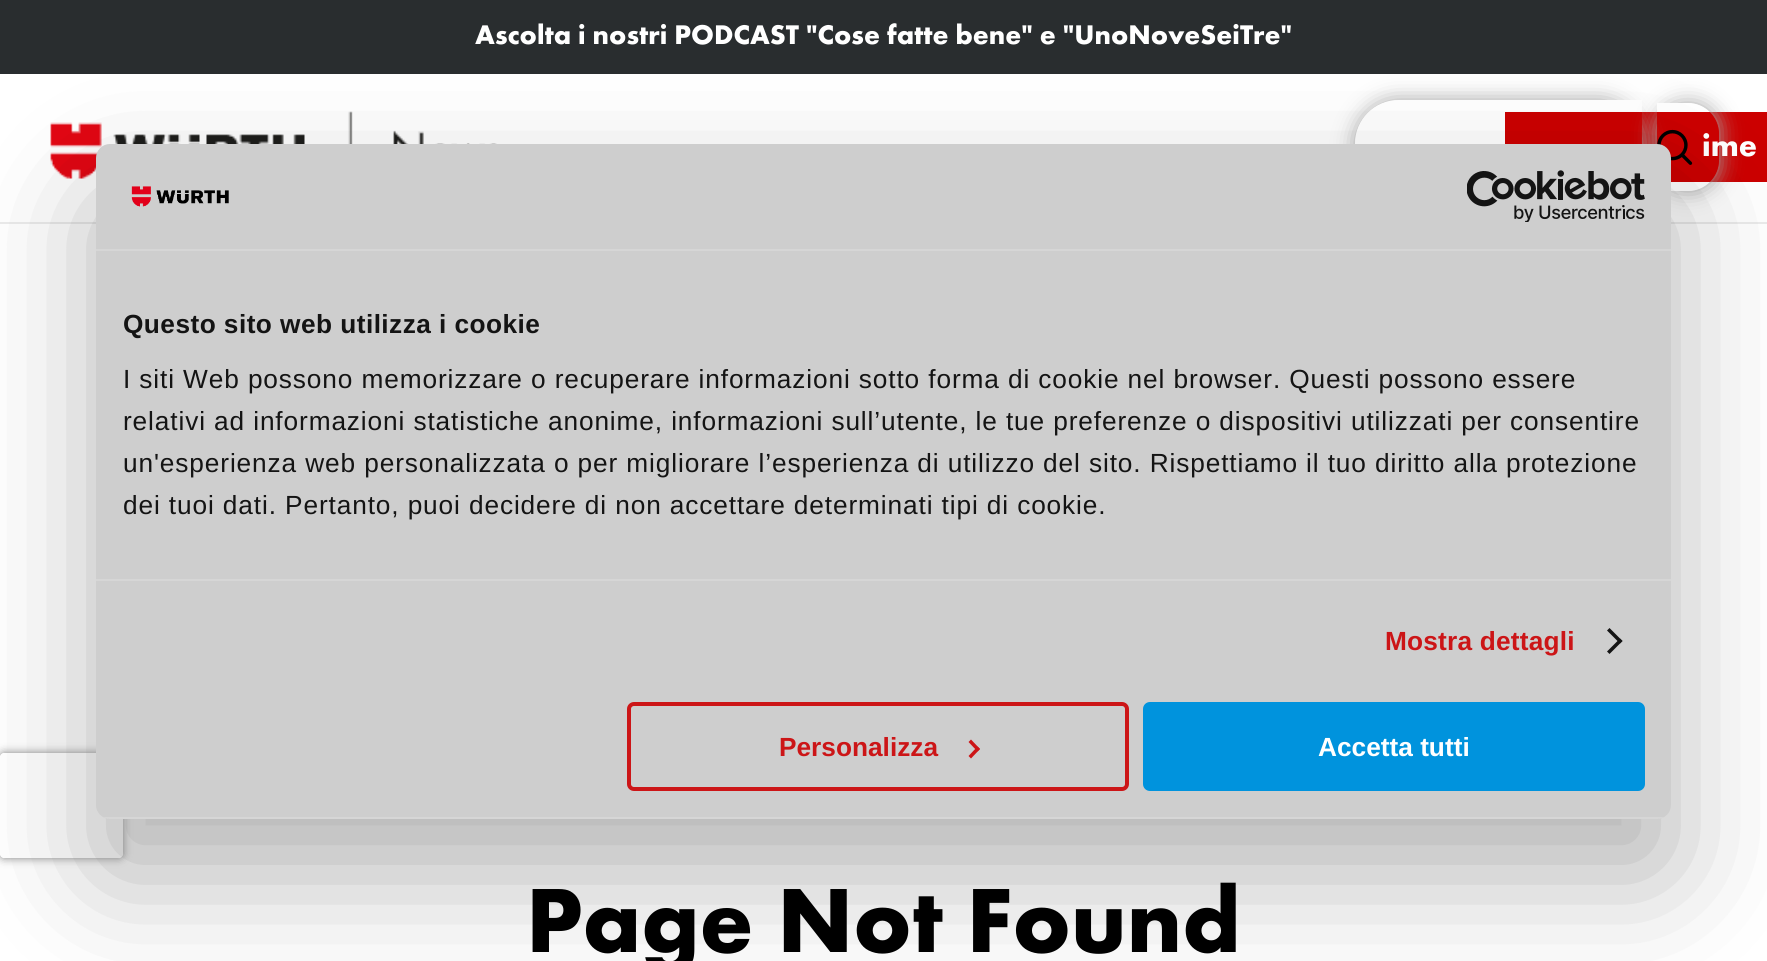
#include <cairo.h>
#include <math.h>
#include <stddef.h>

typedef struct { const char *family; double size; int italic, bold; unsigned color; } style_t;
static cairo_t *ctx;

static void ink(unsigned color) {
    cairo_set_source_rgb(ctx, (color >> 16) / 255.0, (color >> 8 & 255) / 255.0, (color & 255) / 255.0);
}

static void write(double x, double y, const char *s, const style_t *st) {
    cairo_select_font_face(ctx, st->family, st->italic ? CAIRO_FONT_SLANT_ITALIC : CAIRO_FONT_SLANT_NORMAL,
        st->bold ? CAIRO_FONT_WEIGHT_BOLD : CAIRO_FONT_WEIGHT_NORMAL);
    cairo_set_font_size(ctx, st->size);
    ink(st->color);
    cairo_move_to(ctx, x, y);
    cairo_show_text(ctx, s);
}

static void write_spaced(double x, double y, const char *s, double letter, double word) {
    cairo_move_to(ctx, x, y);
    while (*s) {
        char ch[5] = {0};
        int n = 0;
        do ch[n++] = *s++; while ((*s & 0xC0) == 0x80);
        cairo_show_text(ctx, ch);
        cairo_rel_move_to(ctx, letter + word * (*ch == ' '), 0);
    }
}

static void block(double x, double y, double w, double h, unsigned color) {
    ink(color);
    cairo_rectangle(ctx, x, y, w, h);
    cairo_fill(ctx);
}

static void round_path(double x, double y, double w, double h, double r) {
    cairo_new_sub_path(ctx);
    cairo_arc(ctx, x + w - r, y + h - r, r, 0, M_PI / 2);
    cairo_arc(ctx, x + r, y + h - r, r, M_PI / 2, M_PI);
    cairo_arc(ctx, x + r, y + r, r, M_PI, 1.5 * M_PI);
    cairo_arc(ctx, x + w - r, y + r, r, 1.5 * M_PI, 2 * M_PI);
    cairo_close_path(ctx);
}

static void blur_box(double x, double y, double w, double h, double r, double blur, double alpha) {
    cairo_push_group_with_content(ctx, CAIRO_CONTENT_ALPHA);
    cairo_set_operator(ctx, CAIRO_OPERATOR_SOURCE);
    for (int i = 15; i >= -15 && fmin(w, h) + blur * i / 3 > 0; i -= 2) {
        double e = blur * i / 6;
        cairo_set_source_rgba(ctx, 0, 0, 0, alpha * erfc((i - 1) / 8.5) / 2);
        round_path(x - e, y - e, w + 2 * e, h + 2 * e, fmax(0, fmin(r + e + blur * .6, fmin(w, h) / 2 + e)));
        cairo_fill(ctx);
    }
    cairo_pattern_t *soft = cairo_pop_group(ctx);
    cairo_mask(ctx, soft);
    cairo_pattern_destroy(soft);
}

static void paste(const char *path, double x, double y, double w, double h) {
    cairo_surface_t *image = cairo_image_surface_create_from_png(path);
    cairo_save(ctx);
    cairo_set_source_surface(ctx, image, x, y);
    cairo_rectangle(ctx, x, y, w, h);
    cairo_fill(ctx);
    cairo_restore(ctx);
    cairo_surface_destroy(image);
}

static const style_t s1 = {"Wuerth", 28, 0, 1, 0xffffff};
static const style_t s2 = {"Wuerth", 32, 0, 1, 0xffffff};
static const style_t s3 = {"Wuerth", 94.5, 0, 1, 0x000000};
static const style_t s4 = {"Liberation Sans", 26.25, 0, 1, 0xcc1517};
static const style_t s5 = {"Liberation Sans", 26.25, 0, 1, 0xffffff};

int main(void) {
    cairo_surface_t *surface = cairo_image_surface_create(CAIRO_FORMAT_RGB24, 1767, 961);
    ctx = cairo_create(surface);
    cairo_font_options_t *options = cairo_font_options_create();
    cairo_font_options_set_hint_metrics(options, CAIRO_HINT_METRICS_OFF);
    cairo_font_options_set_hint_style(options, CAIRO_HINT_STYLE_NONE);
    cairo_set_font_options(ctx, options);
    cairo_set_miter_limit(ctx, 4);
    ink(0xffffff);
    cairo_paint(ctx);
    ink(0xebebeb);
    cairo_new_path(ctx);
    cairo_move_to(ctx, 0, 222);
    cairo_line_to(ctx, 0, 224);
    cairo_line_to(ctx, 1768, 224);
    cairo_line_to(ctx, 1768, 2);
    cairo_line_to(ctx, 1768, 222);
    cairo_close_path(ctx);
    cairo_fill(ctx);
    block(1505, 112, 262, 70, 0xcc0000);
    cairo_save(ctx);
    cairo_set_fill_rule(ctx, CAIRO_FILL_RULE_EVEN_ODD);
    cairo_new_path(ctx);
    cairo_move_to(ctx, 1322, 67);
    cairo_line_to(ctx, 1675, 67);
    cairo_line_to(ctx, 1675, 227);
    cairo_line_to(ctx, 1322, 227);
    cairo_close_path(ctx);
    cairo_move_to(ctx, 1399, 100);
    cairo_line_to(ctx, 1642, 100);
    cairo_line_to(ctx, 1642, 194);
    cairo_line_to(ctx, 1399, 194);
    cairo_curve_to(ctx, 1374.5, 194, 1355, 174.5, 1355, 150);
    cairo_line_to(ctx, 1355, 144);
    cairo_curve_to(ctx, 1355, 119.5, 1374.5, 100, 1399, 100);
    cairo_close_path(ctx);
    cairo_clip(ctx);
    ink(0xa7a7a7);
    blur_box(1355, 100, 287, 94, 44, 10.5, 1);
    cairo_restore(ctx);
    cairo_save(ctx);
    cairo_set_fill_rule(ctx, CAIRO_FILL_RULE_EVEN_ODD);
    cairo_new_path(ctx);
    cairo_move_to(ctx, 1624, 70);
    cairo_line_to(ctx, 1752, 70);
    cairo_line_to(ctx, 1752, 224);
    cairo_line_to(ctx, 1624, 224);
    cairo_close_path(ctx);
    cairo_move_to(ctx, 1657, 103);
    cairo_line_to(ctx, 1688, 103);
    cairo_curve_to(ctx, 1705, 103, 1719, 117, 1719, 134);
    cairo_line_to(ctx, 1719, 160);
    cairo_curve_to(ctx, 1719, 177, 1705, 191, 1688, 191);
    cairo_line_to(ctx, 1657, 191);
    cairo_close_path(ctx);
    cairo_clip(ctx);
    ink(0xa7a7a7);
    blur_box(1657, 103, 62, 88, 31, 10.5, 1);
    cairo_restore(ctx);
    block(0, 0, 1767, 74, 0x292d2f);
    write(475, 44, "Ascolta i nostri PODCAST \"Cose fatte bene\" e \"UnoNoveSeiTre\"", &s1);
    paste("pic1.png", 50, 111, 447, 68);
    paste("pic2.png", 1657, 129, 36, 36);
    write(1702, 156, "ime", &s2);
    write(526, 952, "Page Not Found", &s3);
    ink(0x000000);
    blur_box(96, 200, 1575, 675, 14, 59.5, 0.3);
    cairo_save(ctx);
    cairo_set_fill_rule(ctx, CAIRO_FILL_RULE_EVEN_ODD);
    cairo_new_path(ctx);
    cairo_move_to(ctx, 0, 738);
    cairo_line_to(ctx, 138, 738);
    cairo_line_to(ctx, 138, 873);
    cairo_line_to(ctx, 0, 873);
    cairo_close_path(ctx);
    cairo_move_to(ctx, 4, 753);
    cairo_line_to(ctx, 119, 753);
    cairo_curve_to(ctx, 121, 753, 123, 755, 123, 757);
    cairo_line_to(ctx, 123, 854);
    cairo_curve_to(ctx, 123, 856, 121, 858, 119, 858);
    cairo_line_to(ctx, 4, 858);
    cairo_curve_to(ctx, 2, 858, 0, 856, 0, 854);
    cairo_line_to(ctx, 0, 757);
    cairo_curve_to(ctx, 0, 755, 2, 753, 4, 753);
    cairo_close_path(ctx);
    cairo_clip(ctx);
    ink(0x808080);
    blur_box(0, 753, 123, 105, 4, 4.5, 1);
    cairo_restore(ctx);
    ink(0xcecece);
    round_path(96, 144, 1575, 675, 14);
    cairo_fill(ctx);
    block(96, 249, 1575, 2, 0xd6d6d6);
    paste("pic3.png", 131, 186, 98, 21);
    paste("pic4.png", 1467, 170, 178, 52);
    block(96, 579, 1575, 2, 0xd6d6d6);
    cairo_select_font_face(ctx, "Liberation Sans", CAIRO_FONT_SLANT_NORMAL, CAIRO_FONT_WEIGHT_BOLD);
    cairo_set_font_size(ctx, 26.25);
    ink(0x141414);
    write_spaced(123, 333, "Questo sito web utilizza i cookie", 0.45, 0);
    cairo_select_font_face(ctx, "Liberation Sans", CAIRO_FONT_SLANT_NORMAL, CAIRO_FONT_WEIGHT_NORMAL);
    write_spaced(123, 388, "I siti Web possono memorizzare o recuperare informazioni sotto forma di cookie nel browser. Questi possono essere", 0.88, 0);
    write_spaced(123, 430, "relativi ad informazioni statistiche anonime, informazioni sull’utente, le tue preferenze o dispositivi utilizzati per consentire", 0.88, 0);
    write_spaced(123, 472, "un'esperienza web personalizzata o per migliorare l’esperienza di utilizzo del sito. Rispettiamo il tuo diritto alla protezione", 0.88, 0);
    write_spaced(123, 514, "dei tuoi dati. Pertanto, puoi decidere di non accettare determinati tipi di cookie.", 0.88, 0);
    cairo_select_font_face(ctx, "Liberation Sans", CAIRO_FONT_SLANT_NORMAL, CAIRO_FONT_WEIGHT_BOLD);
    ink(0xcc1517);
    write_spaced(1385, 650, "Mostra dettagli", 0.2, 0);
    ink(0x141414);
    cairo_new_path(ctx);
    cairo_move_to(ctx, 1609.5, 628);
    cairo_line_to(ctx, 1622.5, 641);
    cairo_line_to(ctx, 1620, 643.5);
    cairo_line_to(ctx, 1607, 630.5);
    cairo_close_path(ctx);
    cairo_fill(ctx);
    cairo_new_path(ctx);
    cairo_move_to(ctx, 1620, 638.5);
    cairo_line_to(ctx, 1622.5, 641);
    cairo_line_to(ctx, 1609.5, 654);
    cairo_line_to(ctx, 1607, 651.5);
    cairo_close_path(ctx);
    cairo_fill(ctx);
    cairo_save(ctx);
    round_path(96, 144, 1575, 675, 14);
    cairo_clip(ctx);
    block(96, 817, 1575, 2, 0xd6d6d6);
    cairo_restore(ctx);
    round_path(629, 704, 498, 85, 5);
    ink(0xcc1517);
    cairo_set_line_width(ctx, 4);
    cairo_stroke(ctx);
    write(779, 756, "Personalizza", &s4);
    cairo_new_path(ctx);
    cairo_move_to(ctx, 971, 739.5);
    cairo_line_to(ctx, 980, 749);
    cairo_line_to(ctx, 977.5, 751.5);
    cairo_line_to(ctx, 968.5, 742);
    cairo_close_path(ctx);
    cairo_fill(ctx);
    cairo_new_path(ctx);
    cairo_move_to(ctx, 977.5, 746.5);
    cairo_line_to(ctx, 980, 749);
    cairo_line_to(ctx, 971, 758.5);
    cairo_line_to(ctx, 968.5, 756);
    cairo_close_path(ctx);
    cairo_fill(ctx);
    ink(0x0093dd);
    round_path(1145, 704, 498, 85, 5);
    cairo_fill_preserve(ctx);
    cairo_stroke(ctx);
    write(1318, 756, "Accetta tutti", &s5);
    cairo_surface_write_to_png(surface, "screenshot.png");
    cairo_font_options_destroy(options);
    cairo_destroy(ctx);
    cairo_surface_destroy(surface);
    return 0;
}
